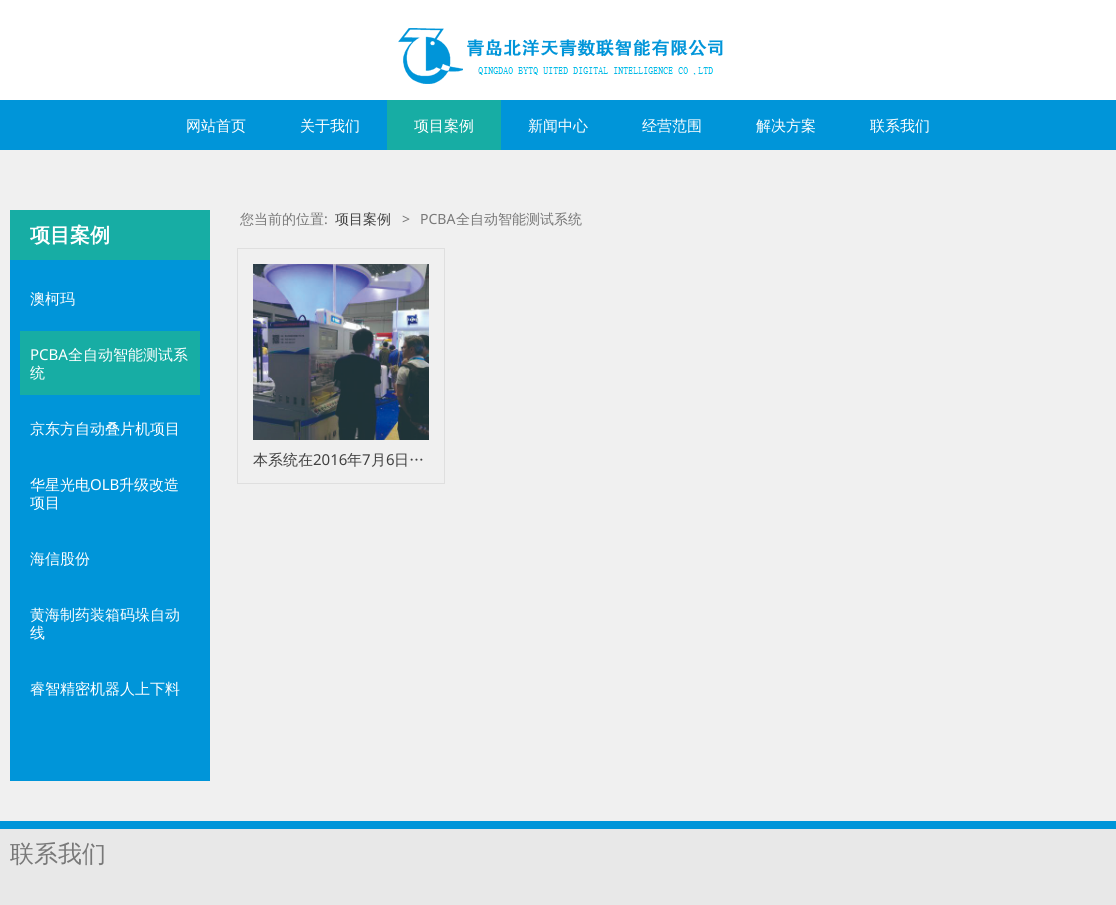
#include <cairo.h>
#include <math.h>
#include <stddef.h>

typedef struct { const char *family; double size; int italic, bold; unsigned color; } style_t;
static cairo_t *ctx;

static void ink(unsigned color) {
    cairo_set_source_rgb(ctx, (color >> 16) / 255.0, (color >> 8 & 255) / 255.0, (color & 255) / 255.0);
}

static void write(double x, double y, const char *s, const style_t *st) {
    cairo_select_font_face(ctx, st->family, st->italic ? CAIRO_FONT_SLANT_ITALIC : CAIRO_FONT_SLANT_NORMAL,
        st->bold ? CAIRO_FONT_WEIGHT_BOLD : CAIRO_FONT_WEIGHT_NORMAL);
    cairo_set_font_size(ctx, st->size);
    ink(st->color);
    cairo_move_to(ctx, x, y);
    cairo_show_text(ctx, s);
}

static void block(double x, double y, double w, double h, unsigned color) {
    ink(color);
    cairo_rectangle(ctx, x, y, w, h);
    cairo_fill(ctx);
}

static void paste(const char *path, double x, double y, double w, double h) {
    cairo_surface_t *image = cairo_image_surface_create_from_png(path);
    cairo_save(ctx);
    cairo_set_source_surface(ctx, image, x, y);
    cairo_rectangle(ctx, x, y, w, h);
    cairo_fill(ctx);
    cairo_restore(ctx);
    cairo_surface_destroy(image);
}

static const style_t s1 = {"WenQuanYi Zen Hei Medium", 15, 0, 0, 0xffffff};
static const style_t s2 = {"WenQuanYi Zen Hei", 20, 0, 1, 0xffffff};
static const style_t s3 = {"Noto Sans", 15, 0, 0, 0xffffff};
static const style_t s4 = {"WenQuanYi Zen Hei Medium", 14, 0, 0, 0x787878};
static const style_t s5 = {"Noto Sans", 14, 0, 0, 0x787878};
static const style_t s6 = {"WenQuanYi Zen Hei Medium", 14, 0, 0, 0x414141};
static const style_t s7 = {"WenQuanYi Zen Hei Medium", 15, 0, 0, 0x414141};
static const style_t s8 = {"Noto Sans", 15, 0, 0, 0x414141};
static const style_t s9 = {"WenQuanYi Zen Hei Medium", 24, 0, 0, 0x787878};

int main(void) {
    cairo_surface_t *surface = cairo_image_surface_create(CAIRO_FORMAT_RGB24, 1116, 905);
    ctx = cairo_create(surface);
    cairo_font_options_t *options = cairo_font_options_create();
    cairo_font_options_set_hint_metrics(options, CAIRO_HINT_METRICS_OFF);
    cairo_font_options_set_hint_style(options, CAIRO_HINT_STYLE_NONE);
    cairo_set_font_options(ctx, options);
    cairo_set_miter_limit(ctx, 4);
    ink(0xf0f0f0);
    cairo_paint(ctx);
    block(0, 0, 1116, 100, 0xffffff);
    paste("pic1.png", 398, 28, 325, 56);
    block(0, 100, 1116, 50, 0x0095d9);
    write(186, 131, "网站首页", &s1);
    write(300, 131, "关于我们", &s1);
    block(387, 100, 114, 50, 0x17ada4);
    write(414, 131, "项目案例", &s1);
    write(528, 131, "新闻中心", &s1);
    write(642, 131, "经营范围", &s1);
    write(756, 131, "解决方案", &s1);
    write(870, 131, "联系我们", &s1);
    block(10, 260, 200, 521, 0x0095d9);
    block(10, 210, 200, 50, 0x17ada4);
    write(30, 242, "项目案例", &s2);
    write(30, 304, "澳柯玛", &s1);
    block(20, 331, 180, 64, 0x17ada4);
    write(30, 360, "PCBA", &s3);
    write(68, 360, "全自动智能测试系", &s1);
    write(30, 378, "统", &s1);
    write(30, 434, "京东方自动叠片机项目", &s1);
    write(30, 490, "华星光电", &s1);
    write(90, 490, "OLB", &s3);
    write(119, 490, "升级改造", &s1);
    write(30, 508, "项目", &s1);
    write(30, 564, "海信股份", &s1);
    write(30, 620, "黄海制药装箱码垛自动", &s1);
    write(30, 638, "线", &s1);
    write(30, 694, "睿智精密机器人上下料", &s1);
    write(240, 224, "您当前的位置", &s4);
    write(324, 224, ":", &s5);
    write(335, 224, "项目案例", &s6);
    write(402, 224, ">", &s5);
    write(420, 224, "PCBA", &s5);
    write(456, 224, "全自动智能测试系统", &s4);
    cairo_rectangle(ctx, 237.5, 248.5, 207, 235);
    ink(0xdfdfdf);
    cairo_set_line_width(ctx, 1);
    cairo_stroke(ctx);
    paste("pic2.png", 253, 264, 176, 176);
    write(253, 465, "本系统在", &s7);
    write(313, 465, "2016", &s8);
    write(347, 465, "年", &s7);
    write(362, 465, "7", &s8);
    write(371, 465, "月", &s7);
    write(386, 465, "6", &s8);
    write(394, 465, "日…", &s7);
    block(0, 829, 1116, 76, 0xe8e8e8);
    block(0, 821, 1116, 8, 0x0095d9);
    write(10, 862, "联系我们", &s9);
    cairo_surface_write_to_png(surface, "screenshot.png");
    cairo_font_options_destroy(options);
    cairo_destroy(ctx);
    cairo_surface_destroy(surface);
    return 0;
}
